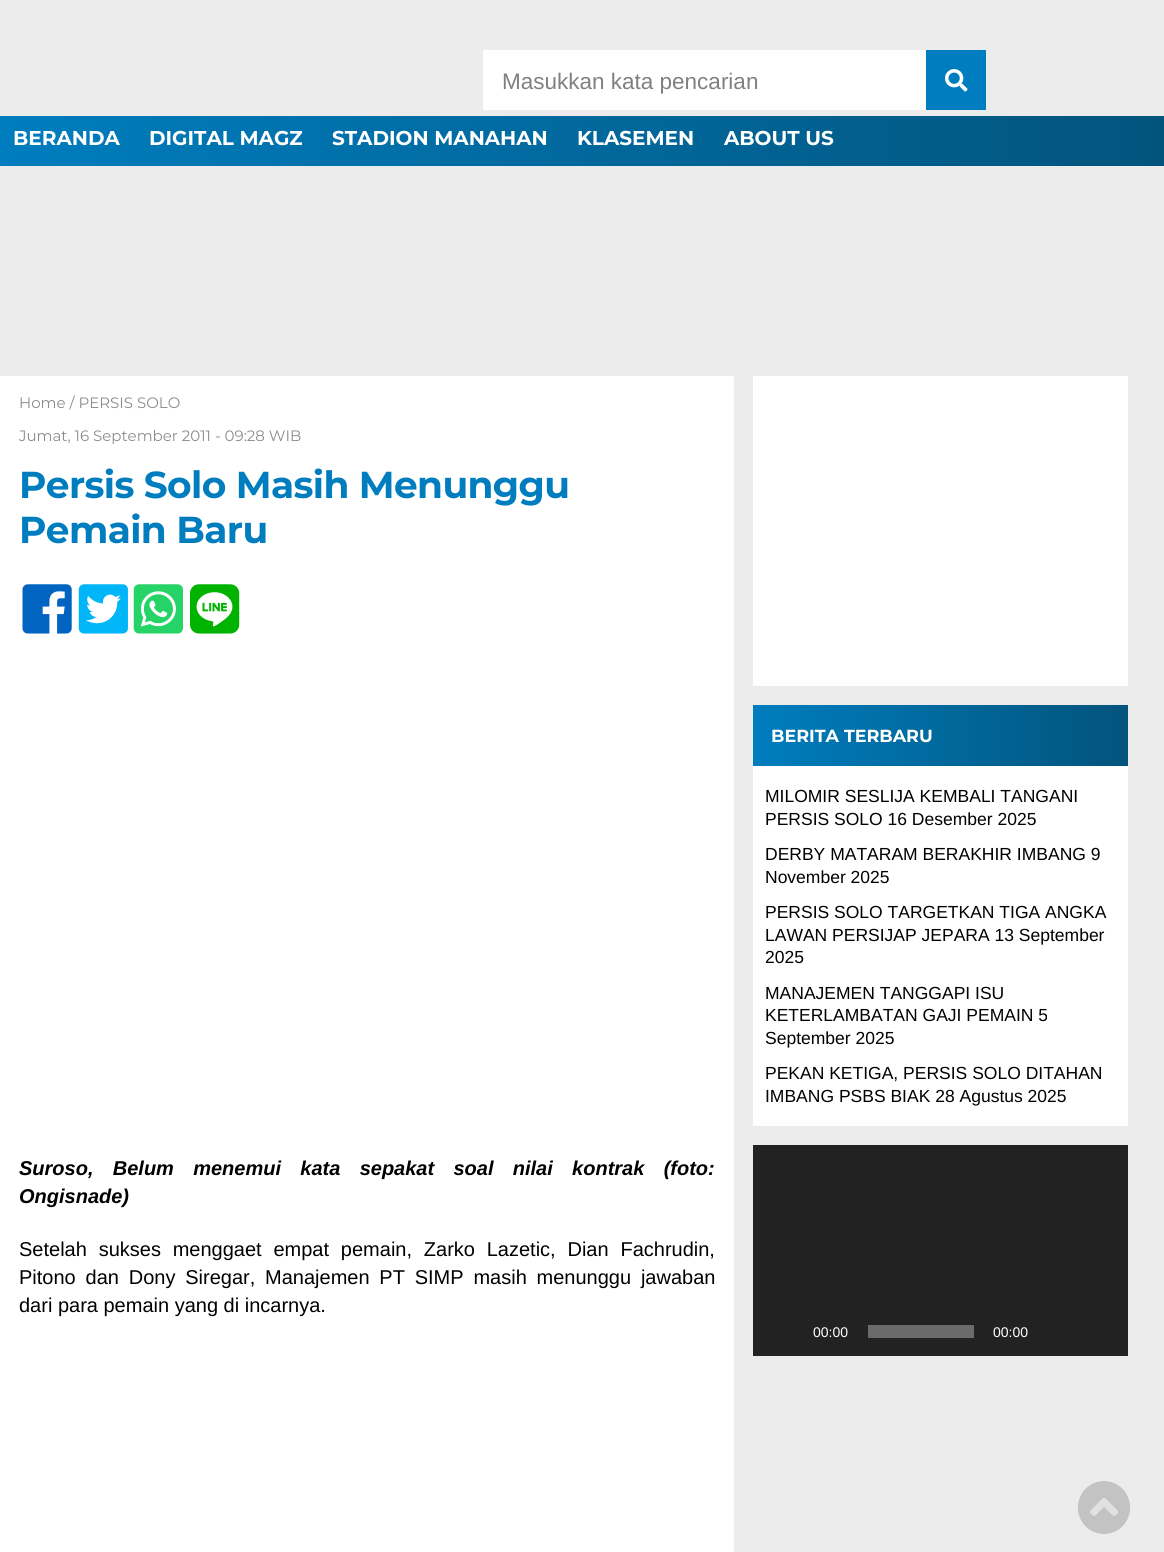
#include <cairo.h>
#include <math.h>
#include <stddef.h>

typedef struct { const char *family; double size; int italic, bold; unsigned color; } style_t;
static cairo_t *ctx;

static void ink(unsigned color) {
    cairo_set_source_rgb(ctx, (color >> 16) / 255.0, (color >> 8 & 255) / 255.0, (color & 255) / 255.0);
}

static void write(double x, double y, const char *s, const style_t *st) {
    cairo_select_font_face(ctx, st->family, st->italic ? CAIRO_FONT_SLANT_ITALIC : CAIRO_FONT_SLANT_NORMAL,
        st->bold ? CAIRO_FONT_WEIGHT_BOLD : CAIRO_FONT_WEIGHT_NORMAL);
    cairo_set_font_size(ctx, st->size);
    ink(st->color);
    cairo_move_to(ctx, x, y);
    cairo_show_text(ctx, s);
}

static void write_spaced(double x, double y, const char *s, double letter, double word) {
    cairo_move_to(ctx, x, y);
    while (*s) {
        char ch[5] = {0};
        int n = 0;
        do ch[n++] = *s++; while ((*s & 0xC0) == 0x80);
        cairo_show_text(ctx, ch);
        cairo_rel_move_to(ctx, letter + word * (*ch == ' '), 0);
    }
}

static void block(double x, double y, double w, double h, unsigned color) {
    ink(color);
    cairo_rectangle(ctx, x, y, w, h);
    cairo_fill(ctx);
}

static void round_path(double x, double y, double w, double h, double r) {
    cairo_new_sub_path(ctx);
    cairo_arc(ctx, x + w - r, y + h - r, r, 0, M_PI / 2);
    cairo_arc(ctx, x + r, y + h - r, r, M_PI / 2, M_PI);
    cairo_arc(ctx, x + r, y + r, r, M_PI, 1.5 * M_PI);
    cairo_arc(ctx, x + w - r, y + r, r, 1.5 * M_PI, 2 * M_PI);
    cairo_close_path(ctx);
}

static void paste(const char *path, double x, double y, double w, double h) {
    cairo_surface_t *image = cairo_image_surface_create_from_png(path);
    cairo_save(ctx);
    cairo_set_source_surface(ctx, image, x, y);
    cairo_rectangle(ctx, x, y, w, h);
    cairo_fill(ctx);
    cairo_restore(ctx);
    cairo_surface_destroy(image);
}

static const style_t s1 = {"Liberation Sans", 22.5, 0, 0, 0x808080};
static const style_t s2 = {"Montserrat", 20, 0, 1, 0xffffff};
static const style_t s3 = {"Montserrat", 15, 0, 0, 0x8c8c8c};
static const style_t s4 = {"Liberation Sans", 20, 1, 1, 0x000000};
static const style_t s5 = {"Liberation Sans", 20, 0, 0, 0x000000};
static const style_t s6 = {"Montserrat", 17.5, 0, 1, 0xffffff};
static const style_t s7 = {"Liberation Sans", 17.5, 0, 0, 0x000000};
static const style_t s8 = {"Liberation Sans", 14, 0, 0, 0xffffff};

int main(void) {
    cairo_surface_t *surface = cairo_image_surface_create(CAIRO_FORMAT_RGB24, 1164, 1552);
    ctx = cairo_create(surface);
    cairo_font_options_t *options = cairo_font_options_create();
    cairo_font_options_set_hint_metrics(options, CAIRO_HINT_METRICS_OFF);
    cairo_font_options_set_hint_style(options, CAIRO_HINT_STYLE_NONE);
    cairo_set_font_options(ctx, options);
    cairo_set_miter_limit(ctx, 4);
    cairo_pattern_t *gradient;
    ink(0xececec);
    cairo_paint(ctx);
    block(483, 50, 443, 60, 0xffffff);
    write(502, 89, "Masukkan kata pencarian", &s1);
    block(926, 50, 60, 60, 0x007dbe);
    paste("pic1.png", 945, 69, 23, 23);
    gradient = cairo_pattern_create_linear(0, 141, 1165, 141);
    cairo_pattern_add_color_stop_rgba(gradient, 0, 0, 0.49, 0.745, 1);
    cairo_pattern_add_color_stop_rgba(gradient, 1, 0.008, 0.329, 0.486, 1);
    cairo_set_source(ctx, gradient);
    cairo_pattern_destroy(gradient);
    cairo_rectangle(ctx, 0, 116, 1164, 50);
    cairo_fill(ctx);
    write(13, 145, "BERANDA", &s2);
    write(149, 145, "DIGITAL MAGZ", &s2);
    write(332, 145, "STADION MANAHAN", &s2);
    write(577, 145, "KLASEMEN", &s2);
    write(724, 145, "ABOUT US", &s2);
    block(0, 376, 734, 1176, 0xffffff);
    write(19, 408, "Home / PERSIS SOLO", &s3);
    write(19, 441, "Jumat, 16 September 2011 - 09:28 WIB", &s3);
    cairo_select_font_face(ctx, "Montserrat", CAIRO_FONT_SLANT_NORMAL, CAIRO_FONT_WEIGHT_BOLD);
    cairo_set_font_size(ctx, 37.5);
    ink(0x007dbe);
    write_spaced(19, 498, "Persis Solo Masih Menunggu", -0.6, 0);
    write_spaced(19, 543, "Pemain Baru", -0.6, 0);
    paste("pic2.png", 22, 584, 50, 50);
    paste("pic3.png", 78, 584, 50, 50);
    paste("pic4.png", 133, 584, 50, 50);
    paste("pic5.png", 190, 584, 50, 50);
    cairo_select_font_face(ctx, "Liberation Sans", CAIRO_FONT_SLANT_ITALIC, CAIRO_FONT_WEIGHT_BOLD);
    cairo_set_font_size(ctx, 20);
    ink(0x000000);
    write_spaced(19, 1175, "Suroso, Belum menemui kata sepakat soal nilai kontrak (foto:", 0, 13.75);
    write(19, 1203, "Ongisnade)", &s4);
    cairo_select_font_face(ctx, "Liberation Sans", CAIRO_FONT_SLANT_NORMAL, CAIRO_FONT_WEIGHT_NORMAL);
    write_spaced(19, 1256, "Setelah sukses menggaet empat pemain, Zarko Lazetic, Dian Fachrudin,", 0, 6.25);
    write_spaced(19, 1284, "Pitono dan Dony Siregar, Manajemen PT SIMP masih menunggu jawaban", 0, 4.25);
    write(19, 1312, "dari para pemain yang di incarnya.", &s5);
    block(753, 376, 375, 310, 0xffffff);
    block(753, 766, 375, 360, 0xffffff);
    gradient = cairo_pattern_create_linear(753, 736, 1128, 736);
    cairo_pattern_add_color_stop_rgba(gradient, 0, 0, 0.49, 0.745, 1);
    cairo_pattern_add_color_stop_rgba(gradient, 1, 0.008, 0.329, 0.486, 1);
    cairo_set_source(ctx, gradient);
    cairo_pattern_destroy(gradient);
    cairo_rectangle(ctx, 753, 705, 375, 61);
    cairo_fill(ctx);
    write(771, 742, "BERITA TERBARU", &s6);
    write(765, 802, "MILOMIR SESLIJA KEMBALI TANGANI", &s7);
    write(765, 825, "PERSIS SOLO 16 Desember 2025", &s7);
    write(765, 860, "DERBY MATARAM BERAKHIR IMBANG 9", &s7);
    write(765, 883, "November 2025", &s7);
    write(765, 918, "PERSIS SOLO TARGETKAN TIGA ANGKA", &s7);
    write(765, 941, "LAWAN PERSIJAP JEPARA 13 September", &s7);
    write(765, 963, "2025", &s7);
    write(765, 999, "MANAJEMEN TANGGAPI ISU", &s7);
    write(765, 1021, "KETERLAMBATAN GAJI PEMAIN 5", &s7);
    write(765, 1044, "September 2025", &s7);
    write(765, 1079, "PEKAN KETIGA, PERSIS SOLO DITAHAN", &s7);
    write(765, 1102, "IMBANG PSBS BIAK 28 Agustus 2025", &s7);
    block(753, 1145, 375, 211, 0x222222);
    write(813, 1337, "00:00", &s8);
    block(868, 1325, 106, 13, 0x6b6b6b);
    write(993, 1337, "00:00", &s8);
    ink(0xc3c3c3);
    round_path(1078, 1481, 52, 53, 26);
    cairo_fill(ctx);
    paste("pic6.png", 1090, 1498, 28, 18);
    cairo_surface_write_to_png(surface, "screenshot.png");
    cairo_font_options_destroy(options);
    cairo_destroy(ctx);
    cairo_surface_destroy(surface);
    return 0;
}
